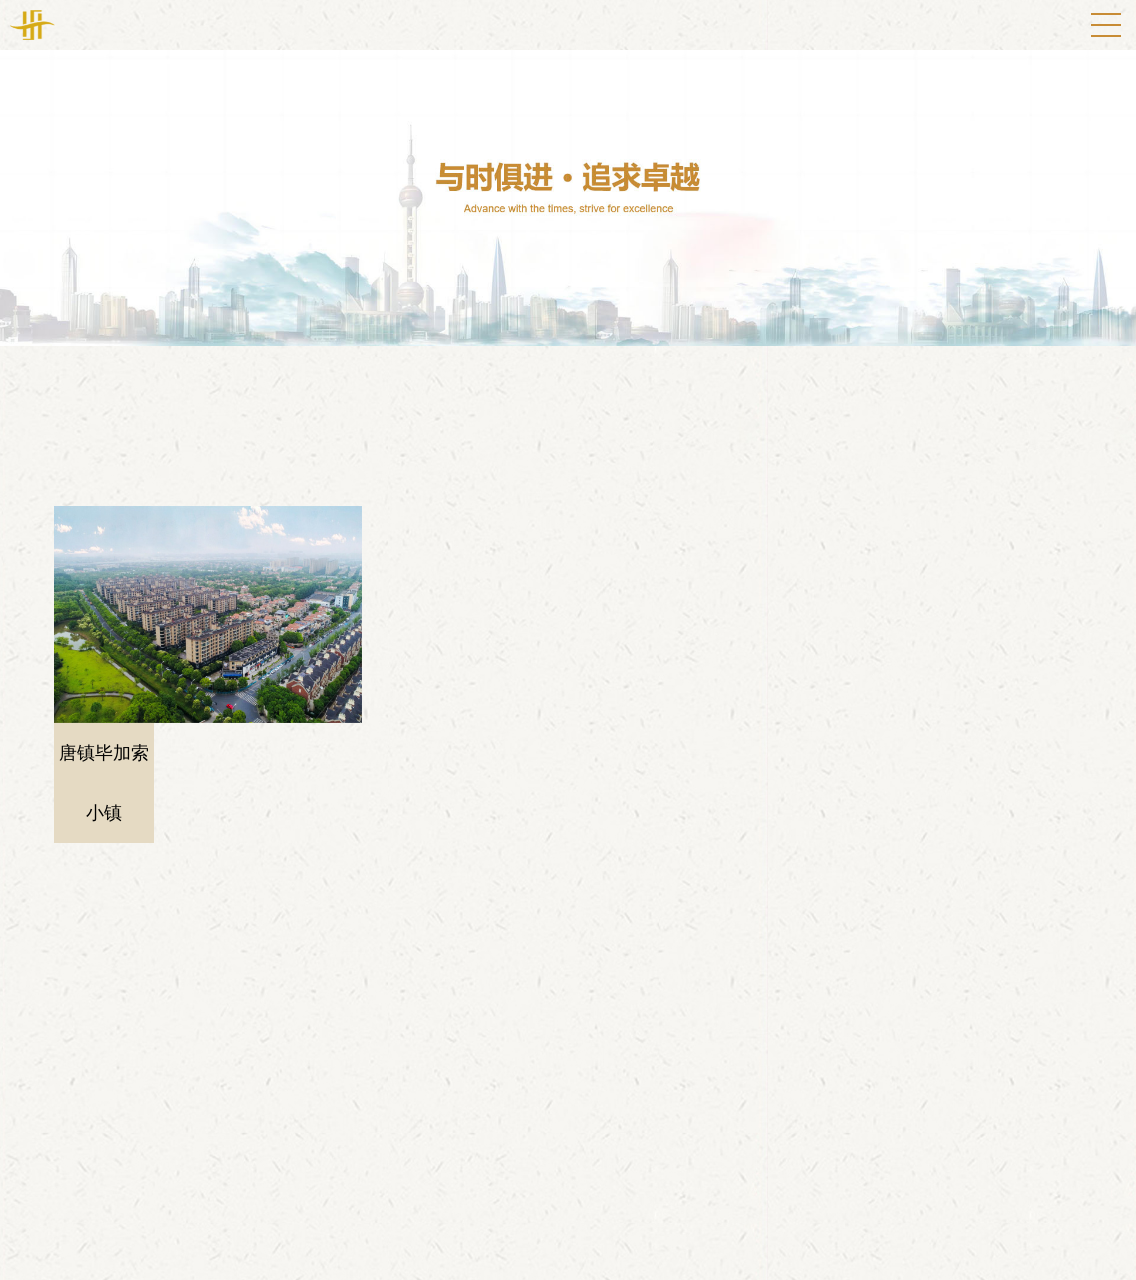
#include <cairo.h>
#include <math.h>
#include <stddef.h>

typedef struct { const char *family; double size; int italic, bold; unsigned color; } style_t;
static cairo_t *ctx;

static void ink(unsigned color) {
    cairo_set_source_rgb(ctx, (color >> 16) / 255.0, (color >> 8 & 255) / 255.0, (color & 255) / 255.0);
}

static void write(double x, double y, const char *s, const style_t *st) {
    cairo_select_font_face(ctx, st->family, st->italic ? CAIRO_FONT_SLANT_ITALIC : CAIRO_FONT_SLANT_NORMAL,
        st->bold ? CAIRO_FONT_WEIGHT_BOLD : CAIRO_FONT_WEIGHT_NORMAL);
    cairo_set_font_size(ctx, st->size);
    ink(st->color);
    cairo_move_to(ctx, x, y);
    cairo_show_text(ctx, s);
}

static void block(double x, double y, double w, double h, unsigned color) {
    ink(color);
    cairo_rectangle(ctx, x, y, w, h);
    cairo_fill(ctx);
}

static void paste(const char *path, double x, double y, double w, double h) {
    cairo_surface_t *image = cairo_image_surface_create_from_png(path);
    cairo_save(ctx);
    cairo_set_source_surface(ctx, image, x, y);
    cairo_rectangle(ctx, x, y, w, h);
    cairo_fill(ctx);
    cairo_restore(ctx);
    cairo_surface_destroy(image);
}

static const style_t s1 = {"WenQuanYi Zen Hei Medium", 18, 0, 0, 0x000000};

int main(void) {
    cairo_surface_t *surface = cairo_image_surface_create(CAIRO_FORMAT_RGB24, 1136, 1280);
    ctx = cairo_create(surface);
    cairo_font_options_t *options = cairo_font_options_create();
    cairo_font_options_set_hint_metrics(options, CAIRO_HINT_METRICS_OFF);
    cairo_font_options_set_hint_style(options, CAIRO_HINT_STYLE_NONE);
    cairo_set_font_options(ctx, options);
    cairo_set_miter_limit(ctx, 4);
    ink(0xffffff);
    cairo_paint(ctx);
    paste("pic1.png", 0, 0, 1136, 1280);
    paste("pic2.png", 10, 10, 45, 30);
    block(1091, 13, 30, 2, 0xc88c35);
    block(1091, 24, 30, 2, 0xc88c35);
    block(1091, 35, 30, 2, 0xc88c35);
    paste("pic3.png", 0, 50, 1136, 296);
    paste("pic4.png", 54, 506, 308, 217);
    block(54, 723, 100, 120, 0xe5dac3);
    write(59, 759, "唐镇毕加索", &s1);
    write(86, 819, "小镇", &s1);
    cairo_surface_write_to_png(surface, "screenshot.png");
    cairo_font_options_destroy(options);
    cairo_destroy(ctx);
    cairo_surface_destroy(surface);
    return 0;
}
